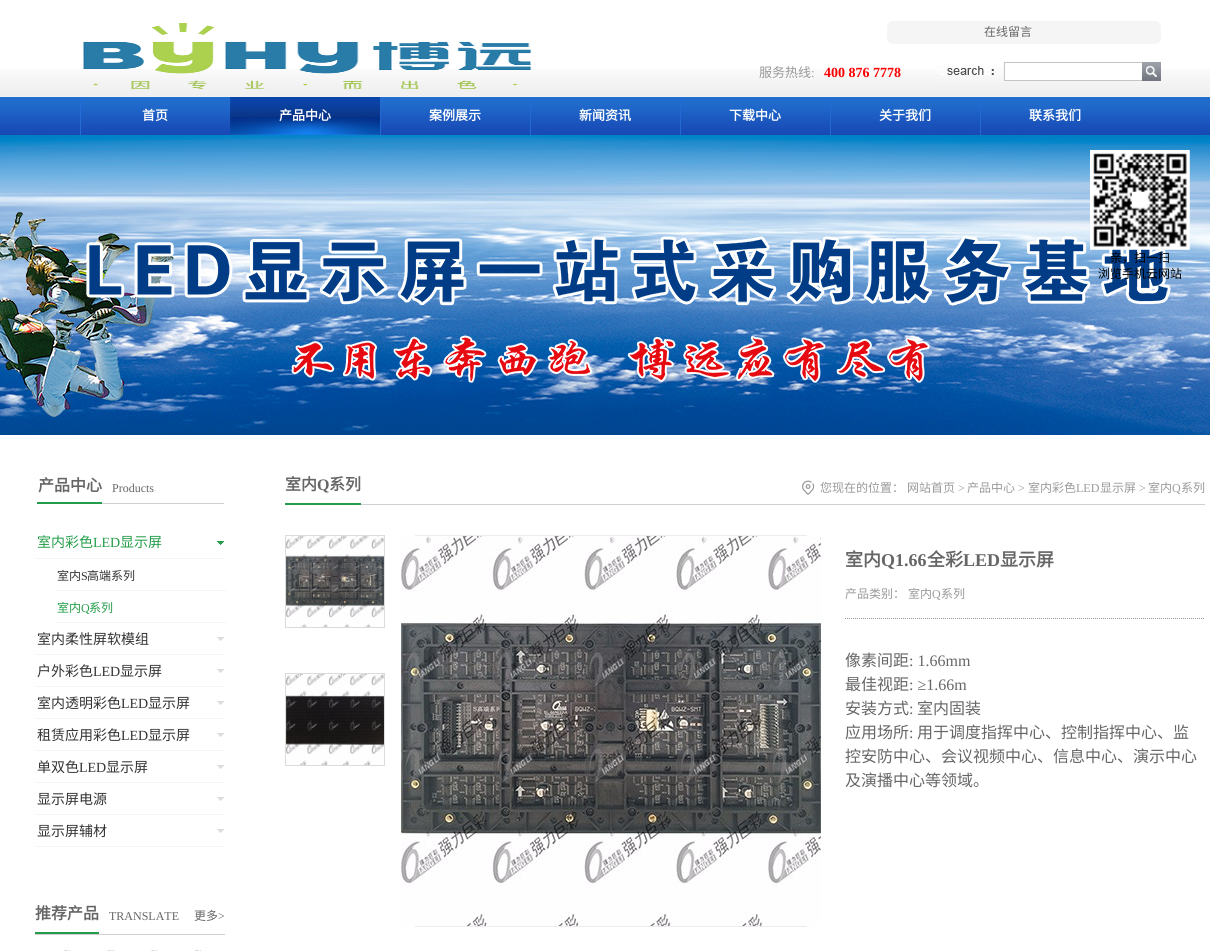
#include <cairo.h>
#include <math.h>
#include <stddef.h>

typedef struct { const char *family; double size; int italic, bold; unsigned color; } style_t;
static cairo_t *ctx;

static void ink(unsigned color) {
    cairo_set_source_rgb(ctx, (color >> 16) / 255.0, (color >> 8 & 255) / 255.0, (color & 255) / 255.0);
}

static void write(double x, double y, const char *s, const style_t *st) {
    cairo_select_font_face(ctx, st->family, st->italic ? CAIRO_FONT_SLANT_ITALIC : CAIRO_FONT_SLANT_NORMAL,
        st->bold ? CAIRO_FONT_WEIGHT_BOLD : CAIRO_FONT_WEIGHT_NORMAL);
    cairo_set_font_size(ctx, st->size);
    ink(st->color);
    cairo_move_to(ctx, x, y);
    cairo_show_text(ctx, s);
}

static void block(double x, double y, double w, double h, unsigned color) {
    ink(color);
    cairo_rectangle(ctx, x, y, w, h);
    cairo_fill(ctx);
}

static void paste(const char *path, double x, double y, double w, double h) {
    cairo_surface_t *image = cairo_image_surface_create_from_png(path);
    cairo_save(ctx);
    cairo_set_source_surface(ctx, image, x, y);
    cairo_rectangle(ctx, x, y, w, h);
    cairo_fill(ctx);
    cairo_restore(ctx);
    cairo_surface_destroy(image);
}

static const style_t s1 = {"Noto Sans CJK SC", 12, 0, 0, 0x666666};
static const style_t s2 = {"Noto Sans CJK SC", 13, 0, 0, 0x999999};
static const style_t s3 = {"Liberation Serif", 13, 0, 0, 0x999999};
static const style_t s4 = {"Liberation Serif", 14, 0, 1, 0xfa0000};
static const style_t s5 = {"Noto Sans CJK SC", 13, 0, 1, 0xffffff};
static const style_t s6 = {"Noto Sans CJK SC", 12, 0, 0, 0x000000};
static const style_t s7 = {"Noto Sans CJK SC", 16, 0, 1, 0x666666};
static const style_t s8 = {"Liberation Serif", 12, 0, 0, 0x666666};
static const style_t s9 = {"Noto Sans CJK SC", 14, 0, 0, 0x239d49};
static const style_t s10 = {"Liberation Serif", 14, 0, 0, 0x239d49};
static const style_t s11 = {"Noto Sans CJK SC", 12, 0, 0, 0x333333};
static const style_t s12 = {"Liberation Serif", 12, 0, 0, 0x333333};
static const style_t s13 = {"Noto Sans CJK SC", 12, 0, 0, 0x239d49};
static const style_t s14 = {"Liberation Serif", 12, 0, 0, 0x239d49};
static const style_t s15 = {"Noto Sans CJK SC", 14, 0, 0, 0x333333};
static const style_t s16 = {"Liberation Serif", 14, 0, 0, 0x333333};
static const style_t s17 = {"Liberation Serif", 16, 0, 1, 0x666666};
static const style_t s18 = {"Noto Sans CJK SC", 12, 0, 0, 0x999999};
static const style_t s19 = {"Liberation Serif", 12, 0, 0, 0x999999};
static const style_t s20 = {"Noto Sans CJK SC", 18, 0, 1, 0x666666};
static const style_t s21 = {"Liberation Serif", 18, 0, 1, 0x666666};
static const style_t s22 = {"Noto Sans CJK SC", 16, 0, 0, 0x666666};
static const style_t s23 = {"Liberation Serif", 16, 0, 0, 0x666666};

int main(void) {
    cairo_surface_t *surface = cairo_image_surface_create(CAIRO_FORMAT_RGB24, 1210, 951);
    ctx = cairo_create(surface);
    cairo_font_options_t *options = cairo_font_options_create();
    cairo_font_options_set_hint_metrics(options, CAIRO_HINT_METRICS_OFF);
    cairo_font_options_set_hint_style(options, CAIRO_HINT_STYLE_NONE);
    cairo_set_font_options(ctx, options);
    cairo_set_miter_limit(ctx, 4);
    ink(0xffffff);
    cairo_paint(ctx);
    paste("pic1.png", 0, 69, 1210, 28);
    paste("pic2.png", 83, 23, 449, 67);
    paste("pic3.png", 887, 21, 274, 23);
    write(984, 36, "在线留言", &s1);
    write(759, 77, "服务热线", &s2);
    write(811, 77, ":", &s3);
    write(824, 77, "400 876 7778", &s4);
    paste("pic4.png", 937, 62, 205, 19);
    paste("pic5.png", 1142, 62, 19, 19);
    paste("pic6.png", 0, 97, 1210, 38);
    block(80, 97, 1, 38, 0x256cd6);
    write(142, 120, "首页", &s5);
    paste("pic7.png", 230, 97, 150, 38);
    write(279, 120, "产品中心", &s5);
    cairo_set_source_rgba(ctx, 0.145, 0.42, 0.835, 0.93);
    cairo_rectangle(ctx, 380, 97, 1, 38);
    cairo_fill(ctx);
    write(429, 120, "案例展示", &s5);
    cairo_set_source_rgba(ctx, 0.145, 0.42, 0.835, 0.93);
    cairo_rectangle(ctx, 530, 97, 1, 38);
    cairo_fill(ctx);
    write(579, 120, "新闻资讯", &s5);
    cairo_set_source_rgba(ctx, 0.145, 0.42, 0.835, 0.93);
    cairo_rectangle(ctx, 680, 97, 1, 38);
    cairo_fill(ctx);
    write(729, 120, "下载中心", &s5);
    cairo_set_source_rgba(ctx, 0.145, 0.42, 0.835, 0.93);
    cairo_rectangle(ctx, 830, 97, 1, 38);
    cairo_fill(ctx);
    write(879, 120, "关于我们", &s5);
    cairo_set_source_rgba(ctx, 0.145, 0.42, 0.835, 0.93);
    cairo_rectangle(ctx, 980, 97, 1, 38);
    cairo_fill(ctx);
    write(1029, 120, "联系我们", &s5);
    paste("pic8.png", 0, 135, 1210, 300);
    paste("pic9.png", 1090, 150, 100, 100);
    write(1110, 262, "亲，扫一扫", &s6);
    write(1098, 278, "浏览手机云网站", &s6);
    paste("pic10.png", 37, 502, 187, 2);
    write(38, 491, "产品中心", &s7);
    write(112, 492, "Products", &s8);
    paste("pic11.png", 217, 541, 7, 4);
    cairo_new_path(ctx);
    cairo_move_to(ctx, 37, 558.5);
    cairo_line_to(ctx, 224, 558.5);
    ink(0xebebeb);
    cairo_set_line_width(ctx, 1);
    cairo_set_dash(ctx, (double[]){1, 1}, 2, 0);
    cairo_stroke(ctx);
    write(37, 547, "室内彩色", &s9);
    write(93, 547, "LED", &s10);
    write(120, 547, "显示屏", &s9);
    cairo_new_path(ctx);
    cairo_move_to(ctx, 57, 590.5);
    cairo_line_to(ctx, 227, 590.5);
    ink(0xebebeb);
    cairo_stroke(ctx);
    write(57, 580, "室内", &s11);
    write(81, 580, "S", &s12);
    write(87, 580, "高端系列", &s11);
    cairo_new_path(ctx);
    cairo_move_to(ctx, 57, 622.5);
    cairo_line_to(ctx, 227, 622.5);
    ink(0xebebeb);
    cairo_stroke(ctx);
    write(57, 612, "室内", &s13);
    write(81, 612, "Q", &s14);
    write(89, 612, "系列", &s13);
    paste("pic12.png", 217, 637, 7, 4);
    cairo_new_path(ctx);
    cairo_move_to(ctx, 37, 654.5);
    cairo_line_to(ctx, 224, 654.5);
    ink(0xebebeb);
    cairo_stroke(ctx);
    write(37, 644, "室内柔性屏软模组", &s15);
    paste("pic12.png", 217, 669, 7, 4);
    cairo_new_path(ctx);
    cairo_move_to(ctx, 37, 686.5);
    cairo_line_to(ctx, 224, 686.5);
    ink(0xebebeb);
    cairo_stroke(ctx);
    write(37, 676, "户外彩色", &s15);
    write(93, 676, "LED", &s16);
    write(120, 676, "显示屏", &s15);
    paste("pic12.png", 217, 701, 7, 4);
    cairo_new_path(ctx);
    cairo_move_to(ctx, 37, 718.5);
    cairo_line_to(ctx, 224, 718.5);
    ink(0xebebeb);
    cairo_stroke(ctx);
    write(37, 708, "室内透明彩色", &s15);
    write(121, 708, "LED", &s16);
    write(148, 708, "显示屏", &s15);
    paste("pic12.png", 217, 733, 7, 4);
    cairo_new_path(ctx);
    cairo_move_to(ctx, 37, 750.5);
    cairo_line_to(ctx, 224, 750.5);
    ink(0xebebeb);
    cairo_stroke(ctx);
    write(37, 740, "租赁应用彩色", &s15);
    write(121, 740, "LED", &s16);
    write(148, 740, "显示屏", &s15);
    paste("pic12.png", 217, 765, 7, 4);
    cairo_new_path(ctx);
    cairo_move_to(ctx, 37, 782.5);
    cairo_line_to(ctx, 224, 782.5);
    ink(0xebebeb);
    cairo_stroke(ctx);
    write(37, 772, "单双色", &s15);
    write(79, 772, "LED", &s16);
    write(106, 772, "显示屏", &s15);
    paste("pic12.png", 217, 797, 7, 4);
    cairo_new_path(ctx);
    cairo_move_to(ctx, 37, 814.5);
    cairo_line_to(ctx, 224, 814.5);
    ink(0xebebeb);
    cairo_stroke(ctx);
    write(37, 804, "显示屏电源", &s15);
    paste("pic12.png", 217, 829, 7, 4);
    cairo_new_path(ctx);
    cairo_move_to(ctx, 37, 846.5);
    cairo_line_to(ctx, 224, 846.5);
    ink(0xebebeb);
    cairo_stroke(ctx);
    write(37, 836, "显示屏辅材", &s15);
    block(35, 934, 190, 1, 0xd0d0d0);
    block(35, 932, 64, 2, 0x239d49);
    write(35, 919, "推荐产品", &s7);
    write(109, 920, "TRANSLATE", &s8);
    write(194, 920, "更多", &s1);
    write(218, 920, ">", &s8);
    paste("pic13.png", 64, 950, 137, 1);
    block(361, 504, 844, 1, 0xd0d0d0);
    block(285, 503, 76, 2, 0x239d49);
    write(285, 490, "室内", &s7);
    write(317, 490, "Q", &s17);
    write(329, 490, "系列", &s7);
    paste("pic14.png", 802, 480, 13, 15);
    write(820, 492, "您现在的位置：", &s18);
    write(907, 492, "网站首页", &s18);
    write(958, 492, ">", &s19);
    write(967, 492, "产品中心", &s18);
    write(1018, 492, ">", &s19);
    write(1028, 492, "室内彩色", &s18);
    write(1076, 492, "LED", &s19);
    write(1100, 492, "显示屏", &s18);
    write(1139, 492, ">", &s19);
    write(1148, 492, "室内", &s18);
    write(1172, 492, "Q", &s19);
    write(1181, 492, "系列", &s18);
    cairo_rectangle(ctx, 285.5, 535.5, 99, 92);
    ink(0xdbdbdb);
    cairo_set_dash(ctx, NULL, 0, 0);
    cairo_stroke(ctx);
    paste("pic15.png", 286, 536, 98, 91);
    cairo_rectangle(ctx, 285.5, 673.5, 99, 92);
    cairo_stroke(ctx);
    paste("pic16.png", 286, 674, 98, 91);
    cairo_rectangle(ctx, 415.5, 535.5, 391, 391);
    ink(0xececec);
    cairo_stroke(ctx);
    paste("pic17.png", 401, 536, 420, 390);
    write(845, 566, "室内", &s20);
    write(881, 566, "Q1.66", &s21);
    write(927, 566, "全彩", &s20);
    write(963, 566, "LED", &s21);
    write(1000, 566, "显示屏", &s20);
    cairo_new_path(ctx);
    cairo_move_to(ctx, 845, 618.5);
    cairo_line_to(ctx, 1205, 618.5);
    ink(0x999999);
    cairo_set_dash(ctx, (double[]){1, 1}, 2, 0);
    cairo_stroke(ctx);
    write(845, 598, "产品类别：", &s18);
    write(908, 598, "室内", &s18);
    write(932, 598, "Q", &s19);
    write(941, 598, "系列", &s18);
    write(845, 666, "像素间距", &s22);
    write(909, 666, ": 1.66mm", &s23);
    write(845, 690, "最佳视距", &s22);
    write(909, 690, ": ≥1.66m", &s23);
    write(845, 714, "安装方式", &s22);
    write(909, 714, ":", &s23);
    write(917, 714, "室内固装", &s22);
    write(845, 738, "应用场所", &s22);
    write(909, 738, ":", &s23);
    write(917, 738, "用于调度指挥中心、控制指挥中心、监", &s22);
    write(845, 762, "控安防中心、会议视频中心、信息中心、演示中心", &s22);
    write(845, 786, "及演播中心等领域。", &s22);
    cairo_surface_write_to_png(surface, "screenshot.png");
    cairo_font_options_destroy(options);
    cairo_destroy(ctx);
    cairo_surface_destroy(surface);
    return 0;
}
